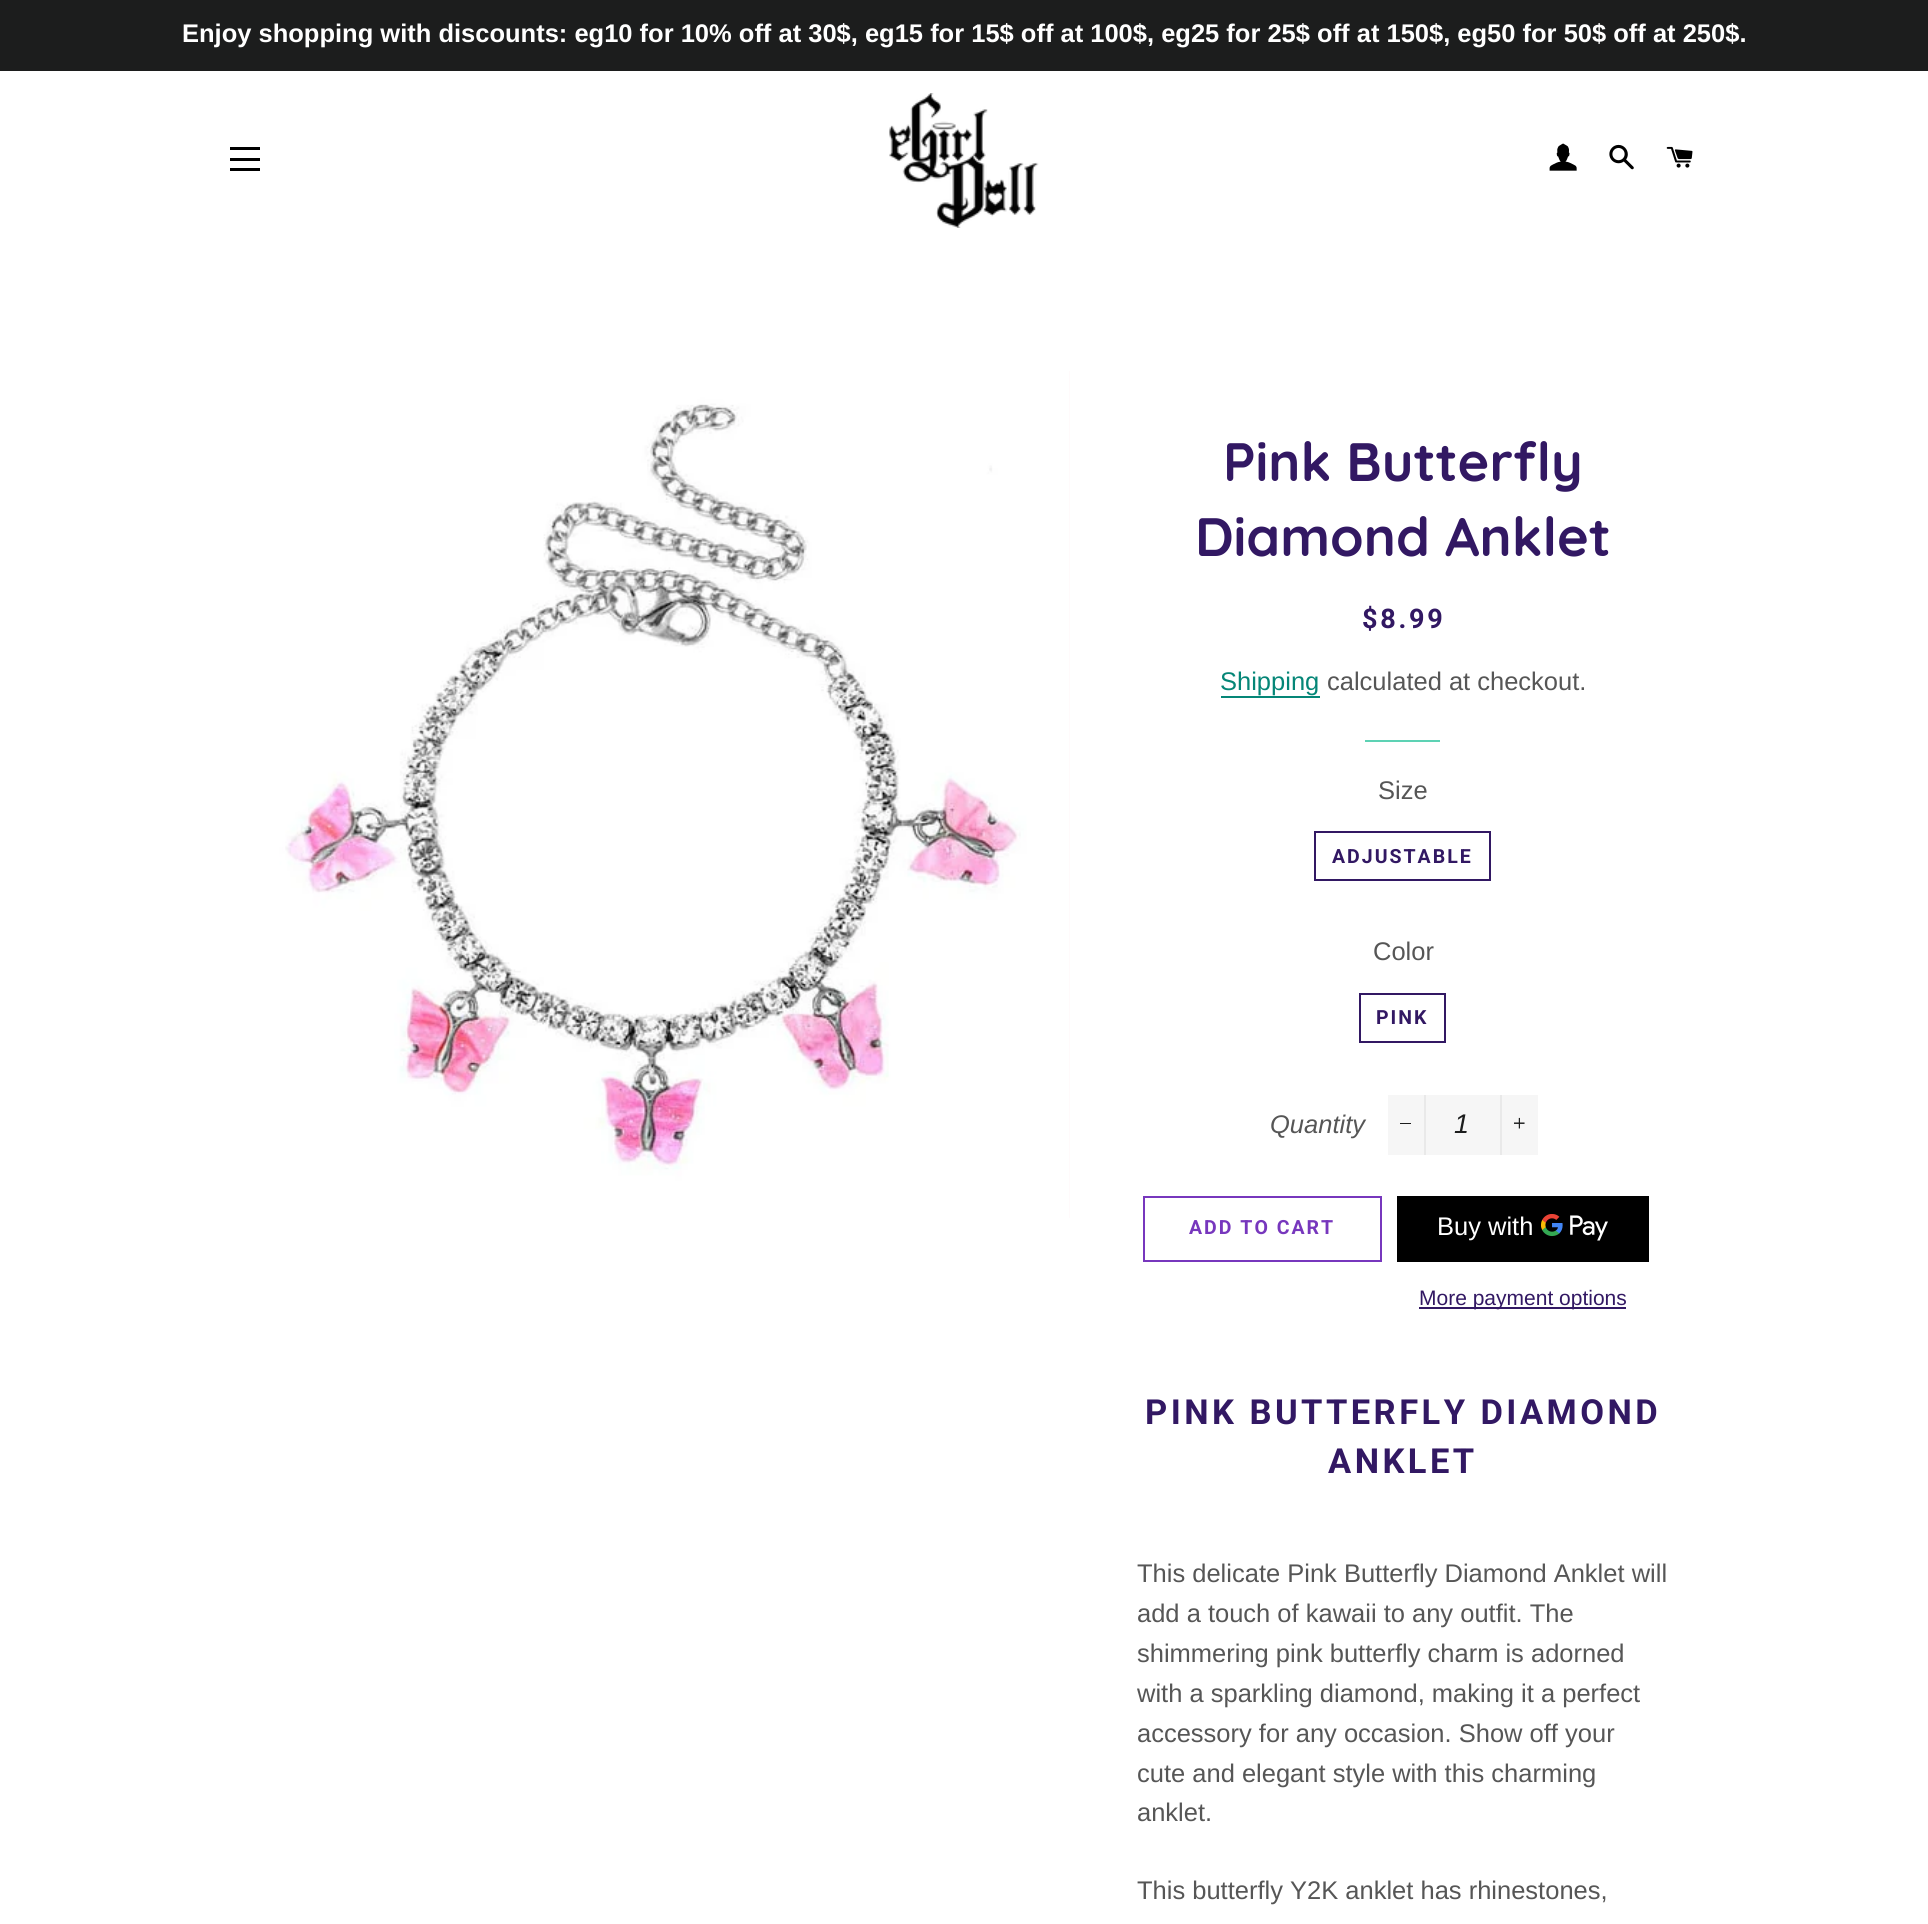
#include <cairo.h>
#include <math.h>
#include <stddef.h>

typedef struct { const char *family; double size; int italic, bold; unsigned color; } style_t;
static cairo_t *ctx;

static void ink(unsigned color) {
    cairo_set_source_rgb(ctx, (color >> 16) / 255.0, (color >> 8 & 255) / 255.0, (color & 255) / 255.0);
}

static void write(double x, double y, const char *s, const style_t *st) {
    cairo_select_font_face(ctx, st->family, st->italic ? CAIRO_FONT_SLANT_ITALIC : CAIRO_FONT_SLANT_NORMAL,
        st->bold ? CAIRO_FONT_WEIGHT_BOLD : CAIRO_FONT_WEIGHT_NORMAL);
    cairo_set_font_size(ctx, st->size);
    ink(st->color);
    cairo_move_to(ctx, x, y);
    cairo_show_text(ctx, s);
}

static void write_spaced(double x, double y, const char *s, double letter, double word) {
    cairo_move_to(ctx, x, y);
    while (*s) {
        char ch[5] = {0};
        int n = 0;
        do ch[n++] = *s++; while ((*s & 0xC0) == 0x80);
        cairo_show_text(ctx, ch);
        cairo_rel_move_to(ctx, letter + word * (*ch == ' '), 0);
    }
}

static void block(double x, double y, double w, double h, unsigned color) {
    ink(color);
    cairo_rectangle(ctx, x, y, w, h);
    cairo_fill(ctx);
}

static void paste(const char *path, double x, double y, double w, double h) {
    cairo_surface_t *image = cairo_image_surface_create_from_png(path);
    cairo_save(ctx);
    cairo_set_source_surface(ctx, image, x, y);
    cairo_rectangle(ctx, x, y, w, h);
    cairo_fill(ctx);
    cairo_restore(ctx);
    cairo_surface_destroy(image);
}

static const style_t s1 = {"Liberation Sans", 25.5, 0, 1, 0xffffff};
static const style_t s2 = {"Quicksand", 54, 0, 1, 0x321863};
static const style_t s3 = {"Liberation Sans", 25.5, 0, 0, 0x058677};
static const style_t s4 = {"Liberation Sans", 25.5, 0, 0, 0x565656};
static const style_t s5 = {"Liberation Sans", 25.5, 1, 0, 0x565656};
static const style_t s6 = {"Liberation Sans", 27, 1, 0, 0x1c1d1d};
static const style_t s7 = {"Liberation Sans", 25.5, 0, 0, 0xffffff};
static const style_t s8 = {"Liberation Sans", 21, 0, 0, 0x321863};

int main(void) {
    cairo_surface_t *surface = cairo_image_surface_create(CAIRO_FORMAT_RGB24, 1928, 1924);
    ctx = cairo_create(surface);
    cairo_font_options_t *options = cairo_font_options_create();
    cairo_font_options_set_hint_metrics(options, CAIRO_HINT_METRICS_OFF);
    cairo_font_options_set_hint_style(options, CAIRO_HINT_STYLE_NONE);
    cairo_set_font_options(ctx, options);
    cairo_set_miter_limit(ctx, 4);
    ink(0xffffff);
    cairo_paint(ctx);
    block(0, 0, 1928, 71, 0x1c1d1d);
    write(182, 42, "Enjoy shopping with discounts: eg10 for 10% off at 30$, eg15 for 15$ off at 100$, eg25 for 25$ off at 150$, eg50 for 50$ off at 250$.", &s1);
    block(230, 147, 30, 3, 0x000000);
    block(230, 158, 30, 3, 0x000000);
    block(230, 168, 30, 3, 0x000000);
    paste("pic1.png", 889, 93, 150, 135);
    paste("pic2.png", 1549, 143, 28, 28);
    paste("pic3.png", 1609, 144, 25, 26);
    paste("pic4.png", 1666, 146, 27, 22);
    block(1069, 371, 1, 847, 0xfff4f6);
    paste("pic5.png", 222, 371, 848, 847);
    write(1223, 481, "Pink Butterfly", &s2);
    write(1195, 556, "Diamond Anklet", &s2);
    cairo_select_font_face(ctx, "Roboto", CAIRO_FONT_SLANT_NORMAL, CAIRO_FONT_WEIGHT_BOLD);
    cairo_set_font_size(ctx, 27);
    write_spaced(1362, 628, "$8.99", 2.75, 0);
    write(1220, 690, "Shipping", &s3);
    block(1221, 696, 99, 2, 0x058677);
    write(1327, 690, "calculated at checkout.", &s4);
    block(1365, 740, 75, 2, 0x5dd2b4);
    write(1378, 799, "Size", &s4);
    cairo_rectangle(ctx, 1315, 832, 175, 48);
    ink(0x321863);
    cairo_stroke(ctx);
    cairo_select_font_face(ctx, "Roboto", CAIRO_FONT_SLANT_NORMAL, CAIRO_FONT_WEIGHT_BOLD);
    cairo_set_font_size(ctx, 19.5);
    write_spaced(1332, 863, "ADJUSTABLE", 2, 0);
    write(1373, 960, "Color", &s4);
    cairo_rectangle(ctx, 1360, 994, 85, 48);
    ink(0x321863);
    cairo_stroke(ctx);
    cairo_select_font_face(ctx, "Roboto", CAIRO_FONT_SLANT_NORMAL, CAIRO_FONT_WEIGHT_BOLD);
    cairo_set_font_size(ctx, 19.5);
    write_spaced(1376, 1024, "PINK", 2, 0);
    write(1270, 1133, "Quantity", &s5);
    block(1388, 1095, 150, 60, 0xf6f6f6);
    block(1424, 1095, 2, 60, 0xe9e9e9);
    block(1400, 1123, 11, 1, 0x1c1d1d);
    write(1454, 1133, "1", &s6);
    block(1500, 1095, 2, 60, 0xe9e9e9);
    paste("pic6.png", 1514, 1117, 11, 12);
    cairo_rectangle(ctx, 1144, 1197, 237, 64);
    ink(0x7737bd);
    cairo_stroke(ctx);
    cairo_select_font_face(ctx, "Roboto", CAIRO_FONT_SLANT_NORMAL, CAIRO_FONT_WEIGHT_BOLD);
    cairo_set_font_size(ctx, 19.5);
    write_spaced(1189, 1234, "ADD TO CART", 2, 0);
    block(1397, 1196, 252, 66, 0x000000);
    write(1437, 1235, "Buy with", &s7);
    paste("pic7.png", 1541, 1214, 67, 27);
    block(1419, 1307, 207, 2, 0x321863);
    write(1419, 1305, "More payment options", &s8);
    cairo_select_font_face(ctx, "Roboto", CAIRO_FONT_SLANT_NORMAL, CAIRO_FONT_WEIGHT_BOLD);
    cairo_set_font_size(ctx, 34.5);
    write_spaced(1145, 1424, "PINK BUTTERFLY DIAMOND", 3.45, 0);
    write_spaced(1328, 1473, "ANKLET", 3.45, 0);
    write(1137, 1582, "This delicate Pink Butterfly Diamond Anklet will", &s4);
    write(1137, 1622, "add a touch of kawaii to any outfit. The", &s4);
    write(1137, 1662, "shimmering pink butterfly charm is adorned", &s4);
    write(1137, 1702, "with a sparkling diamond, making it a perfect", &s4);
    write(1137, 1742, "accessory for any occasion. Show off your", &s4);
    write(1137, 1782, "cute and elegant style with this charming", &s4);
    write(1137, 1821, "anklet.", &s4);
    write(1137, 1899, "This butterfly Y2K anklet has rhinestones,", &s4);
    cairo_surface_write_to_png(surface, "screenshot.png");
    cairo_font_options_destroy(options);
    cairo_destroy(ctx);
    cairo_surface_destroy(surface);
    return 0;
}
